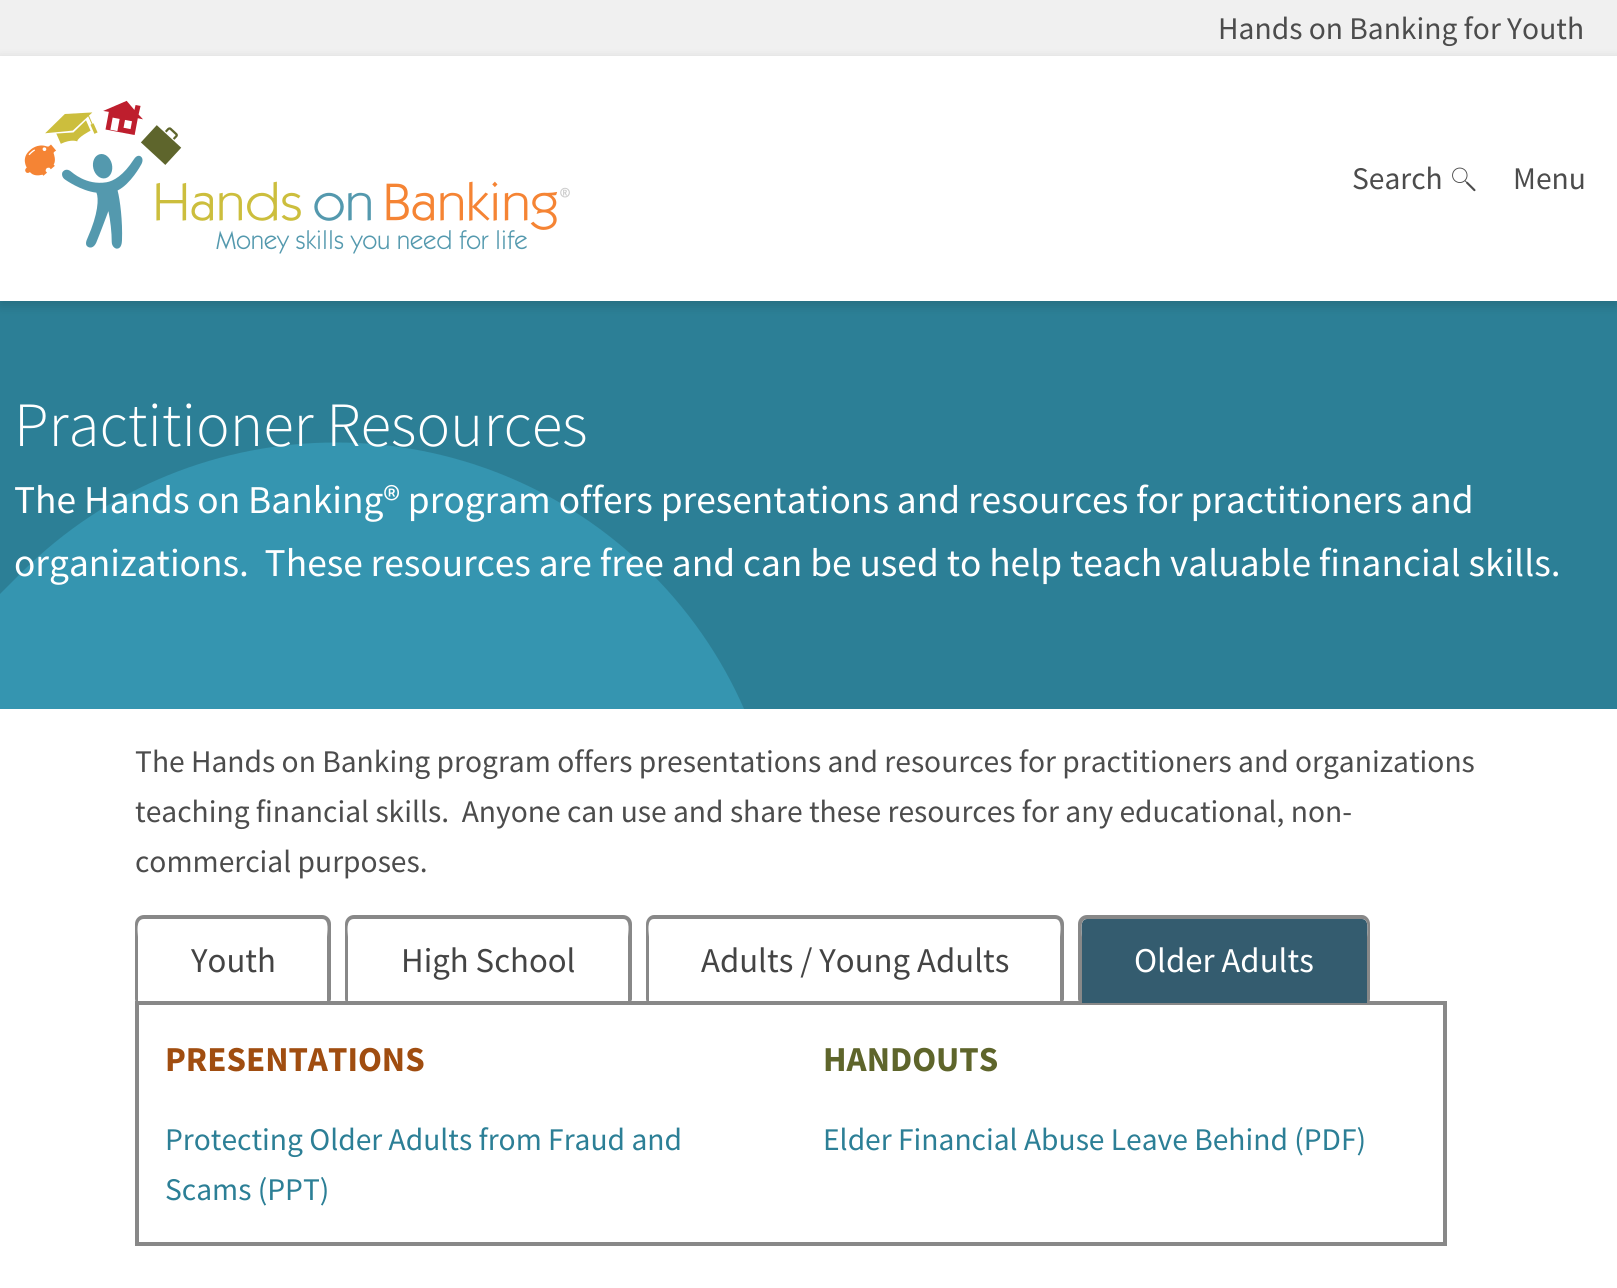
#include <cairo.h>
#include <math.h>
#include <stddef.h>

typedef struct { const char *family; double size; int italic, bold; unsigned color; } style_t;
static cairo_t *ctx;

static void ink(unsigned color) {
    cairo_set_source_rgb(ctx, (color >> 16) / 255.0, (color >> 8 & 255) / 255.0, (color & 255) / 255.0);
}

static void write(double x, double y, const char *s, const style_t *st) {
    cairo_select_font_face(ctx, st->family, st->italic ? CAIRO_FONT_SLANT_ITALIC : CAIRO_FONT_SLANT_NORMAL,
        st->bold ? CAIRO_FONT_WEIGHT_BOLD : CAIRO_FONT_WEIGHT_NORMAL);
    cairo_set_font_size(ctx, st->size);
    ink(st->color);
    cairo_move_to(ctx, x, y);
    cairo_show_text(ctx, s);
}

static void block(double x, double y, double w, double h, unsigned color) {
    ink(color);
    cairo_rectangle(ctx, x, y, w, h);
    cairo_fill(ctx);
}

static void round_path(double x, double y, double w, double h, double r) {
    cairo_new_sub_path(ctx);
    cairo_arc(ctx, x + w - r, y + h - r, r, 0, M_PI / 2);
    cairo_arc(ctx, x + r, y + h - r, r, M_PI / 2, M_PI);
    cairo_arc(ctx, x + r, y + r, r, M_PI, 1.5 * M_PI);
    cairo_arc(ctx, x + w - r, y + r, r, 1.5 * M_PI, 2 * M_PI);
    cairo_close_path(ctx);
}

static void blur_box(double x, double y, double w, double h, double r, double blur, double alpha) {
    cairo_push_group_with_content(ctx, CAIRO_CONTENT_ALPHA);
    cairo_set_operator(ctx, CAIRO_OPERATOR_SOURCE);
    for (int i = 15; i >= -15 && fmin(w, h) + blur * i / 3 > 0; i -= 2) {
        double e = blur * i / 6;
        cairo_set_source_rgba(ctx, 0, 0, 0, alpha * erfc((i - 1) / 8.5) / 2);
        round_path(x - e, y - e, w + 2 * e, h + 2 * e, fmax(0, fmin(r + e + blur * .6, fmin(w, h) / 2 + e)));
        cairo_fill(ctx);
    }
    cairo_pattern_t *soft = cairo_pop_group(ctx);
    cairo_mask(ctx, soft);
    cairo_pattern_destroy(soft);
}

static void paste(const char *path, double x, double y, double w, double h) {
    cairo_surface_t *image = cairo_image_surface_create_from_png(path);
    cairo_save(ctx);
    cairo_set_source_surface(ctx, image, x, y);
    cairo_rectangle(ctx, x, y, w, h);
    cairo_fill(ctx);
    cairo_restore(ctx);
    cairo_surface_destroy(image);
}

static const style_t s1 = {"Source Sans Pro", 31.5, 0, 0, 0x4c4c4c};
static const style_t s2 = {"Source Sans Pro Light", 63, 0, 0, 0xffffff};
static const style_t s3 = {"Source Sans Pro", 39.4, 0, 0, 0xffffff};
static const style_t s4 = {"Source Sans Pro", 34.75, 0, 0, 0x444444};
static const style_t s5 = {"Source Sans Pro", 34.75, 0, 0, 0xffffff};
static const style_t s6 = {"Source Sans Pro", 35, 0, 1, 0xa04d10};
static const style_t s7 = {"Source Sans Pro", 31.5, 0, 0, 0x2c7f96};
static const style_t s8 = {"Source Sans Pro", 35, 0, 1, 0x5e652b};

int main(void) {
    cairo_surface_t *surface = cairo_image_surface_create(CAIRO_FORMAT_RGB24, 1617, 1288);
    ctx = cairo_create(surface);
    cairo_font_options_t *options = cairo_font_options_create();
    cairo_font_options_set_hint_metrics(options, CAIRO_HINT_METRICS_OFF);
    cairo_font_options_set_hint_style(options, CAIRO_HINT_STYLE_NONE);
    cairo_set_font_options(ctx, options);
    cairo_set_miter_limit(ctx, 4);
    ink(0xffffff);
    cairo_paint(ctx);
    block(0, 0, 1617, 56, 0xf0f0f0);
    write(1218, 39, "Hands on Banking for Youth", &s1);
    block(0, 301, 1617, 408, 0x2c7f96);
    cairo_save(ctx);
    cairo_set_fill_rule(ctx, CAIRO_FILL_RULE_EVEN_ODD);
    cairo_new_path(ctx);
    cairo_move_to(ctx, 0, 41);
    cairo_line_to(ctx, 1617, 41);
    cairo_line_to(ctx, 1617, 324);
    cairo_line_to(ctx, 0, 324);
    cairo_close_path(ctx);
    cairo_move_to(ctx, 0, 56);
    cairo_line_to(ctx, 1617, 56);
    cairo_line_to(ctx, 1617, 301);
    cairo_line_to(ctx, 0, 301);
    cairo_close_path(ctx);
    cairo_clip(ctx);
    ink(0x000000);
    blur_box(0, 60, 1617, 245, 0, 6, 0.16);
    cairo_restore(ctx);
    paste("pic1.png", 24, 100, 546, 154);
    write(1352, 189, "Search", &s1);
    paste("pic2.png", 1452, 167, 24, 25);
    write(1513, 189, "Menu", &s1);
    cairo_save(ctx);
    cairo_rectangle(ctx, 0, 441, 782, 268);
    cairo_clip(ctx);
    ink(0x3595b0);
    cairo_set_fill_rule(ctx, CAIRO_FILL_RULE_EVEN_ODD);
    cairo_new_path(ctx);
    cairo_move_to(ctx, 390, 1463);
    cairo_line_to(ctx, -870, 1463);
    cairo_line_to(ctx, 21, 573);
    cairo_curve_to(ctx, 195, 399, 477, 399, 651, 573);
    cairo_curve_to(ctx, 825, 747, 825, 1029, 651, 1203);
    cairo_close_path(ctx);
    cairo_fill(ctx);
    cairo_restore(ctx);
    write(14, 446, "Practitioner Resources", &s2);
    write(14, 513, "The Hands on Banking® program offers presentations and resources for practitioners and", &s3);
    write(14, 576, "organizations.  These resources are free and can be used to help teach valuable financial skills.", &s3);
    write(135, 772, "The Hands on Banking program offers presentations and resources for practitioners and organizations", &s1);
    write(135, 822, "teaching financial skills.  Anyone can use and share these resources for any educational, non-", &s1);
    write(135, 872, "commercial purposes.", &s1);
    ink(0x888888);
    cairo_set_fill_rule(ctx, CAIRO_FILL_RULE_EVEN_ODD);
    cairo_new_path(ctx);
    cairo_move_to(ctx, 144, 915);
    cairo_line_to(ctx, 322, 915);
    cairo_curve_to(ctx, 327, 915, 331, 919, 331, 924);
    cairo_line_to(ctx, 331, 999);
    cairo_curve_to(ctx, 331, 1001, 329, 1003, 327, 1003);
    cairo_line_to(ctx, 138, 1003);
    cairo_curve_to(ctx, 136, 1003, 135, 1001, 135, 999);
    cairo_line_to(ctx, 135, 924);
    cairo_curve_to(ctx, 135, 919, 139, 915, 144, 915);
    cairo_close_path(ctx);
    cairo_move_to(ctx, 144, 919);
    cairo_line_to(ctx, 322, 919);
    cairo_curve_to(ctx, 330, 919, 327, 933, 327, 937);
    cairo_line_to(ctx, 327, 1003);
    cairo_line_to(ctx, 138, 1003);
    cairo_line_to(ctx, 138, 937);
    cairo_curve_to(ctx, 138, 933, 135, 919, 144, 919);
    cairo_close_path(ctx);
    cairo_fill(ctx);
    write(191, 972, "Youth", &s4);
    ink(0x888888);
    cairo_new_path(ctx);
    cairo_move_to(ctx, 354, 915);
    cairo_line_to(ctx, 623, 915);
    cairo_curve_to(ctx, 628, 915, 632, 919, 632, 924);
    cairo_line_to(ctx, 632, 999);
    cairo_curve_to(ctx, 632, 1001, 630, 1003, 628, 1003);
    cairo_line_to(ctx, 348, 1003);
    cairo_curve_to(ctx, 346, 1003, 345, 1001, 345, 999);
    cairo_line_to(ctx, 345, 924);
    cairo_curve_to(ctx, 345, 919, 349, 915, 354, 915);
    cairo_close_path(ctx);
    cairo_move_to(ctx, 354, 919);
    cairo_line_to(ctx, 623, 919);
    cairo_curve_to(ctx, 631, 919, 628, 933, 628, 937);
    cairo_line_to(ctx, 628, 1003);
    cairo_line_to(ctx, 348, 1003);
    cairo_line_to(ctx, 348, 937);
    cairo_curve_to(ctx, 348, 933, 345, 919, 354, 919);
    cairo_close_path(ctx);
    cairo_fill(ctx);
    write(401, 972, "High School", &s4);
    ink(0x888888);
    cairo_new_path(ctx);
    cairo_move_to(ctx, 654, 915);
    cairo_line_to(ctx, 1055, 915);
    cairo_curve_to(ctx, 1060, 915, 1064, 919, 1064, 924);
    cairo_line_to(ctx, 1064, 999);
    cairo_curve_to(ctx, 1064, 1001, 1062, 1003, 1060, 1003);
    cairo_line_to(ctx, 649, 1003);
    cairo_curve_to(ctx, 647, 1003, 646, 1001, 646, 999);
    cairo_line_to(ctx, 646, 924);
    cairo_curve_to(ctx, 646, 919, 650, 915, 654, 915);
    cairo_close_path(ctx);
    cairo_move_to(ctx, 654, 919);
    cairo_line_to(ctx, 1055, 919);
    cairo_curve_to(ctx, 1063, 919, 1060, 933, 1060, 937);
    cairo_line_to(ctx, 1060, 1003);
    cairo_line_to(ctx, 649, 1003);
    cairo_line_to(ctx, 649, 937);
    cairo_curve_to(ctx, 649, 933, 646, 919, 654, 919);
    cairo_close_path(ctx);
    cairo_fill(ctx);
    write(701, 972, "Adults / Young Adults", &s4);
    cairo_rectangle(ctx, 137, 1003, 1308, 241);
    ink(0x888888);
    cairo_set_line_width(ctx, 4);
    cairo_stroke(ctx);
    ink(0x345c6f);
    cairo_set_fill_rule(ctx, CAIRO_FILL_RULE_WINDING);
    cairo_new_path(ctx);
    cairo_move_to(ctx, 1087, 919);
    cairo_line_to(ctx, 1362, 919);
    cairo_curve_to(ctx, 1370, 919, 1367, 933, 1367, 937);
    cairo_line_to(ctx, 1367, 1003);
    cairo_line_to(ctx, 1082, 1003);
    cairo_line_to(ctx, 1082, 937);
    cairo_curve_to(ctx, 1082, 933, 1079, 919, 1087, 919);
    cairo_close_path(ctx);
    cairo_fill(ctx);
    ink(0x888888);
    cairo_set_fill_rule(ctx, CAIRO_FILL_RULE_EVEN_ODD);
    cairo_new_path(ctx);
    cairo_move_to(ctx, 1087, 915);
    cairo_line_to(ctx, 1362, 915);
    cairo_curve_to(ctx, 1366, 915, 1370, 919, 1370, 924);
    cairo_line_to(ctx, 1370, 999);
    cairo_curve_to(ctx, 1370, 1001, 1369, 1003, 1367, 1003);
    cairo_line_to(ctx, 1082, 1003);
    cairo_curve_to(ctx, 1080, 1003, 1078, 1001, 1078, 999);
    cairo_line_to(ctx, 1078, 924);
    cairo_curve_to(ctx, 1078, 919, 1082, 915, 1087, 915);
    cairo_close_path(ctx);
    cairo_move_to(ctx, 1087, 919);
    cairo_line_to(ctx, 1362, 919);
    cairo_curve_to(ctx, 1370, 919, 1367, 933, 1367, 937);
    cairo_line_to(ctx, 1367, 1003);
    cairo_line_to(ctx, 1082, 1003);
    cairo_line_to(ctx, 1082, 937);
    cairo_curve_to(ctx, 1082, 933, 1079, 919, 1087, 919);
    cairo_close_path(ctx);
    cairo_fill(ctx);
    write(1134, 972, "Older Adults", &s5);
    write(165, 1071, "PRESENTATIONS", &s6);
    write(165, 1150, "Protecting Older Adults from Fraud and", &s7);
    write(165, 1200, "Scams (PPT)", &s7);
    write(823, 1071, "HANDOUTS", &s8);
    write(823, 1150, "Elder Financial Abuse Leave Behind (PDF)", &s7);
    cairo_surface_write_to_png(surface, "screenshot.png");
    cairo_font_options_destroy(options);
    cairo_destroy(ctx);
    cairo_surface_destroy(surface);
    return 0;
}
